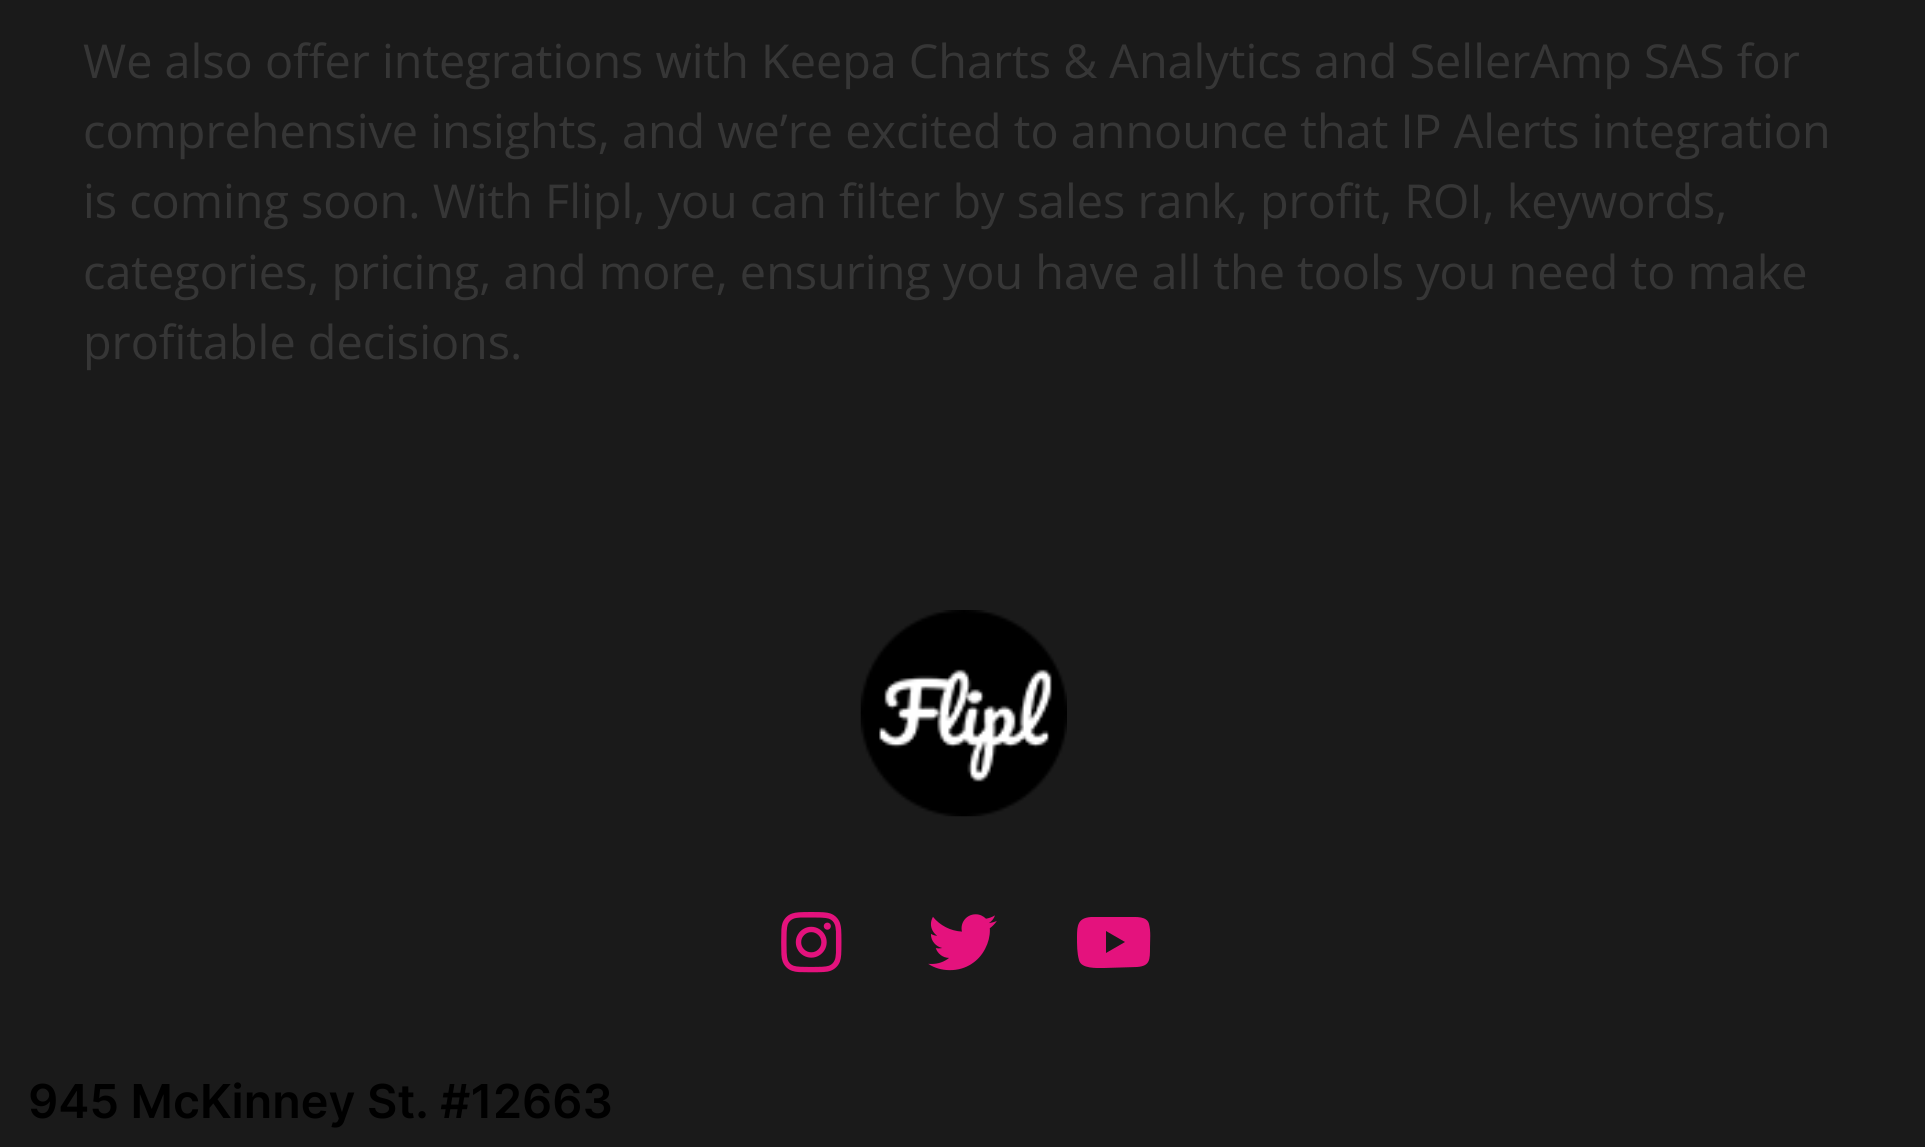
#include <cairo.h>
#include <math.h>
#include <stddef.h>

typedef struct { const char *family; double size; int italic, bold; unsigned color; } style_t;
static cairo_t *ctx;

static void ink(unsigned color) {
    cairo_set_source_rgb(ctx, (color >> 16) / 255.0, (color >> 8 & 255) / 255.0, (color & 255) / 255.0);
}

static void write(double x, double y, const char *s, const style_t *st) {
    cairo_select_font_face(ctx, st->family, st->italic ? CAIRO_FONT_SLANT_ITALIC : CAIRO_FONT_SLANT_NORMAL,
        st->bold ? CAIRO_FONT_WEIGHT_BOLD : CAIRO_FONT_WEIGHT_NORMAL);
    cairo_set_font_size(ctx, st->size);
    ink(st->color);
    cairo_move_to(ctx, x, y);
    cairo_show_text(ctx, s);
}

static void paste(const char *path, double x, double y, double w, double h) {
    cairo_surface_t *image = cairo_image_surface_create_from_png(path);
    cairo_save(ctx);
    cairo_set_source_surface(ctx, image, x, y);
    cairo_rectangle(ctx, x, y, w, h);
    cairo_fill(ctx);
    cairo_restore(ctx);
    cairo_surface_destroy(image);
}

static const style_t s1 = {"Open Sans", 46.75, 0, 0, 0x363636};
static const style_t s2 = {"Inter SemiBold", 46.75, 0, 0, 0x000000};

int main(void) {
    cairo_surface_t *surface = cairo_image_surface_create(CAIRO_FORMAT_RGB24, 1925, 1147);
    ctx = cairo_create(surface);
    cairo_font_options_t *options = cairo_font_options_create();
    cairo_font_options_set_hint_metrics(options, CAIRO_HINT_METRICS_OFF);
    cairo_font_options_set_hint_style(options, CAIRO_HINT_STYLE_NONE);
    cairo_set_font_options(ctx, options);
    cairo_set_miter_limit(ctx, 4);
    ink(0x1a1a1a);
    cairo_paint(ctx);
    write(83, 78, "We also offer integrations with Keepa Charts & Analytics and SellerAmp SAS for", &s1);
    write(83, 148, "comprehensive insights, and we’re excited to announce that IP Alerts integration", &s1);
    write(83, 218, "is coming soon. With Flipl, you can filter by sales rank, profit, ROI, keywords,", &s1);
    write(83, 289, "categories, pricing, and more, ensuring you have all the tools you need to make", &s1);
    write(83, 359, "profitable decisions.", &s1);
    paste("pic1.png", 860, 610, 207, 207);
    paste("pic2.png", 781, 912, 61, 61);
    paste("pic3.png", 928, 914, 69, 57);
    ink(0xe4127d);
    cairo_new_path(ctx);
    cairo_move_to(ctx, 1149, 924);
    cairo_curve_to(ctx, 1151, 932, 1150, 940, 1150, 947);
    cairo_curve_to(ctx, 1150, 960, 1150, 966, 1137, 967);
    cairo_line_to(ctx, 1104, 968);
    cairo_curve_to(ctx, 1097, 968, 1081, 969, 1079, 960);
    cairo_curve_to(ctx, 1077, 953, 1077, 945, 1077, 937);
    cairo_curve_to(ctx, 1077, 925, 1078, 918, 1091, 917);
    cairo_line_to(ctx, 1108, 917);
    cairo_line_to(ctx, 1129, 917);
    cairo_curve_to(ctx, 1136, 917, 1147, 916, 1149, 924);
    cairo_close_path(ctx);
    cairo_move_to(ctx, 1106, 953);
    cairo_line_to(ctx, 1125, 942);
    cairo_line_to(ctx, 1106, 931);
    cairo_close_path(ctx);
    cairo_fill(ctx);
    write(28, 1118, "945 McKinney St. #12663", &s2);
    cairo_surface_write_to_png(surface, "screenshot.png");
    cairo_font_options_destroy(options);
    cairo_destroy(ctx);
    cairo_surface_destroy(surface);
    return 0;
}
